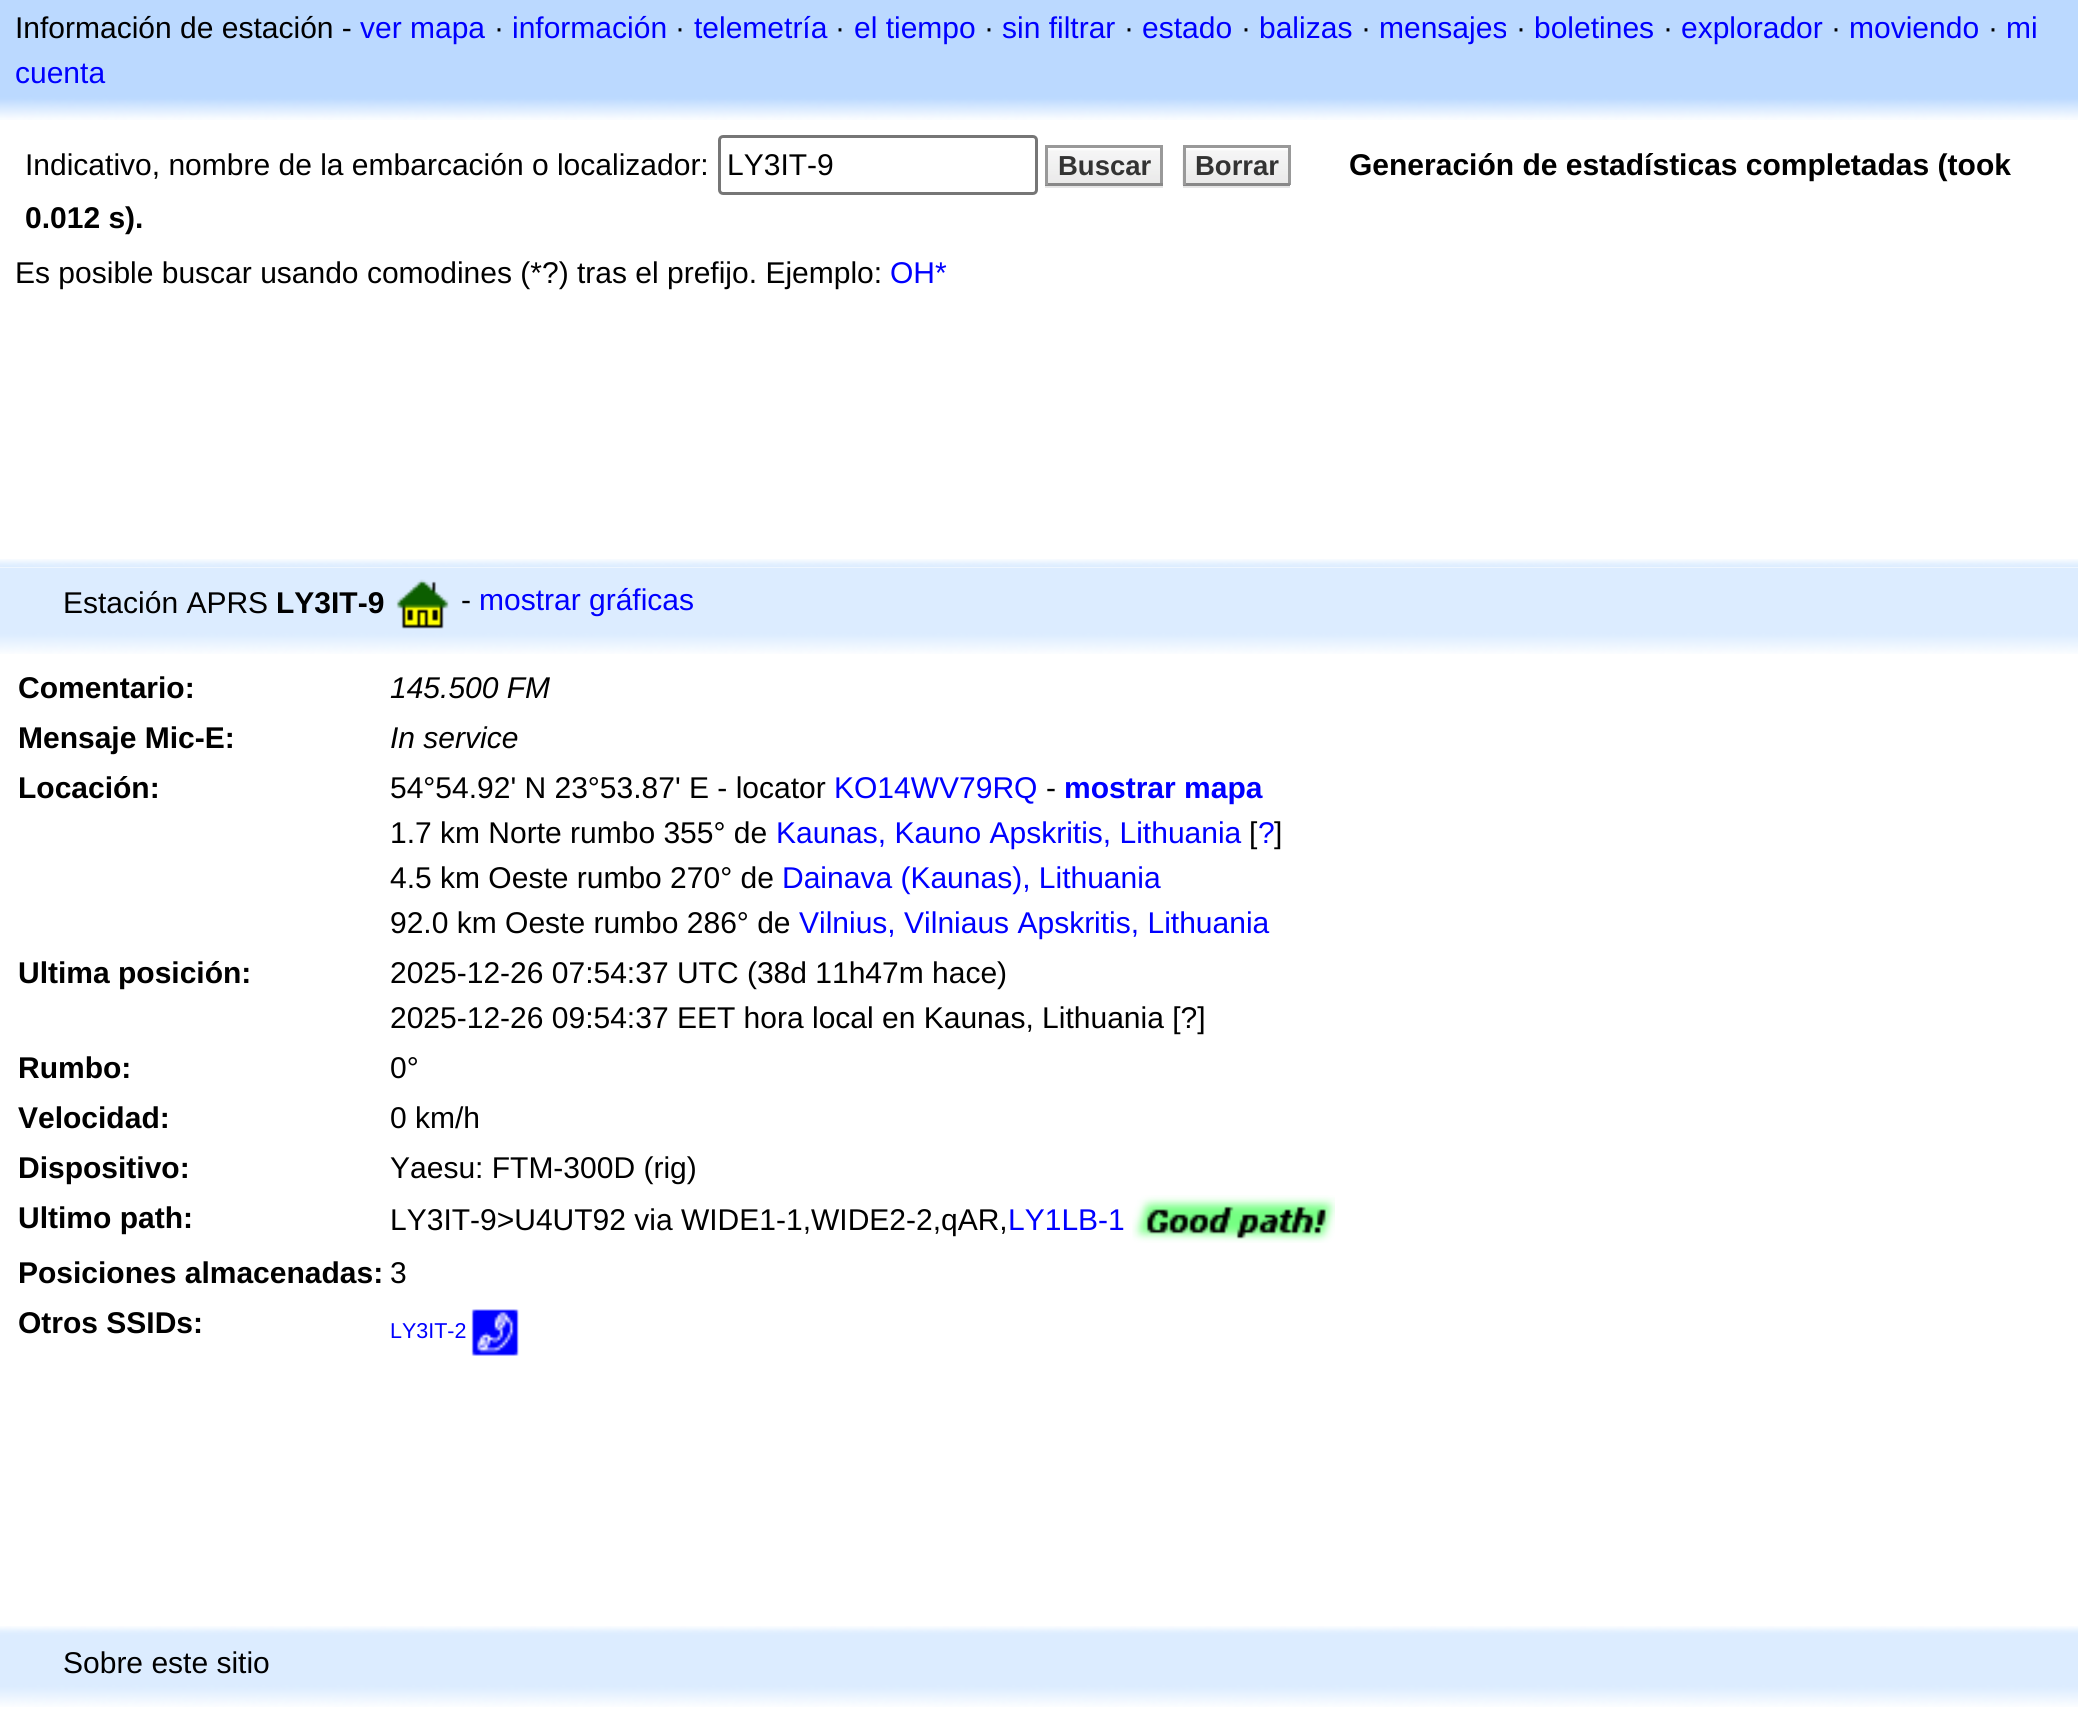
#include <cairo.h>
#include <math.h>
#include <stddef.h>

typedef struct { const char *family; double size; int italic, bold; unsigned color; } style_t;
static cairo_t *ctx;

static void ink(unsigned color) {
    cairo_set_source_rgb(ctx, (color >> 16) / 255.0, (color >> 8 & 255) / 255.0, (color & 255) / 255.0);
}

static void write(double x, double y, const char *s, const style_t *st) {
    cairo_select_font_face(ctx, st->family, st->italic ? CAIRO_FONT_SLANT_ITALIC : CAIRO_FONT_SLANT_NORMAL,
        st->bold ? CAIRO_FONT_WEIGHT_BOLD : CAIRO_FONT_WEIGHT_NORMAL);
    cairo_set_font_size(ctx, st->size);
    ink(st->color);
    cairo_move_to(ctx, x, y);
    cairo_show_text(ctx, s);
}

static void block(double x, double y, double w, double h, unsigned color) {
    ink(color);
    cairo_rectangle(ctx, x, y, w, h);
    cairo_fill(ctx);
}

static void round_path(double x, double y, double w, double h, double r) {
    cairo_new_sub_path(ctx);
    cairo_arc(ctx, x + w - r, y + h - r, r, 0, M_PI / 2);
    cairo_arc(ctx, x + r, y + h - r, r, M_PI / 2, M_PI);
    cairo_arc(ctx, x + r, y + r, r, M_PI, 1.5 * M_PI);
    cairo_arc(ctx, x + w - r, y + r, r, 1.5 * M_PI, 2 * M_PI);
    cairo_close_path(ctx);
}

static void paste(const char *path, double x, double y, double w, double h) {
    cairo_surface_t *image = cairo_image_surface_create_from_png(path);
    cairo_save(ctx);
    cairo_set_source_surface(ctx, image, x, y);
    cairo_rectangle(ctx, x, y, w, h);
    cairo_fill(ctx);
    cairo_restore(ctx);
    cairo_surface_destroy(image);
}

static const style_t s1 = {"Liberation Sans", 30, 0, 0, 0x000000};
static const style_t s2 = {"Liberation Sans", 30, 0, 0, 0x0000ff};
static const style_t s3 = {"Liberation Sans", 27.5, 0, 1, 0x333333};
static const style_t s4 = {"Liberation Sans", 30, 0, 1, 0x000000};
static const style_t s5 = {"Liberation Sans", 30, 1, 0, 0x000000};
static const style_t s6 = {"Liberation Sans", 30, 0, 1, 0x0000ff};
static const style_t s7 = {"Liberation Sans", 21.5, 0, 0, 0x0000ff};

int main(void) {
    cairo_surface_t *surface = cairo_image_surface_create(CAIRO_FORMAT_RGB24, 2078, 1710);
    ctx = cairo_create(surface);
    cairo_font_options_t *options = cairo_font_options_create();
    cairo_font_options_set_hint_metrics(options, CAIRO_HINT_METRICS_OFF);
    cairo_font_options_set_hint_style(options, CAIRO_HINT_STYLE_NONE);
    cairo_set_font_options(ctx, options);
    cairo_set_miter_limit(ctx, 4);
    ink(0xffffff);
    cairo_paint(ctx);
    block(0, 0, 2078, 95, 0xbbd9ff);
    write(15, 38, "Información de estación -", &s1);
    write(360, 38, "ver mapa", &s2);
    write(494, 38, "·", &s1);
    write(512, 38, "información", &s2);
    write(675, 38, "·", &s1);
    write(694, 38, "telemetría", &s2);
    write(835, 38, "·", &s1);
    write(854, 38, "el tiempo", &s2);
    write(984, 38, "·", &s1);
    write(1002, 38, "sin filtrar", &s2);
    write(1124, 38, "·", &s1);
    write(1142, 38, "estado", &s2);
    write(1241, 38, "·", &s1);
    write(1259, 38, "balizas", &s2);
    write(1361, 38, "·", &s1);
    write(1379, 38, "mensajes", &s2);
    write(1516, 38, "·", &s1);
    write(1534, 38, "boletines", &s2);
    write(1663, 38, "·", &s1);
    write(1681, 38, "explorador", &s2);
    write(1831, 38, "·", &s1);
    write(1849, 38, "moviendo", &s2);
    write(1988, 38, "·", &s1);
    write(2006, 38, "mi", &s2);
    write(15, 83, "cuenta", &s2);
    paste("pic1.png", 0, 95, 2078, 25);
    write(25, 175, "Indicativo, nombre de la embarcación o localizador:", &s1);
    round_path(719.5, 136.5, 317, 57, 3.5);
    ink(0x767676);
    cairo_set_line_width(ctx, 3);
    cairo_stroke(ctx);
    write(727, 175, "LY3IT-9", &s1);
    ink(0xe6e6e6);
    cairo_new_path(ctx);
    cairo_move_to(ctx, 1045, 185);
    cairo_line_to(ctx, 1045, 188);
    cairo_line_to(ctx, 1163, 188);
    cairo_line_to(ctx, 1163, 148);
    cairo_line_to(ctx, 1162, 148);
    cairo_line_to(ctx, 1162, 185);
    cairo_close_path(ctx);
    cairo_fill(ctx);
    paste("pic2.png", 1048, 148, 112, 35);
    block(1045, 145, 118, 3, 0x999999);
    block(1160, 145, 3, 40, 0x999999);
    block(1045, 183, 118, 3, 0x888888);
    block(1045, 145, 3, 40, 0x999999);
    write(1058, 175, "Buscar", &s3);
    block(1183, 186, 107, 2, 0xe6e6e6);
    paste("pic3.png", 1182, 147, 106, 38);
    block(1183, 145, 107, 3, 0x999999);
    block(1288, 145, 3, 40, 0x999999);
    block(1183, 183, 107, 3, 0x888888);
    block(1183, 145, 3, 40, 0x999999);
    write(1195, 175, "Borrar", &s3);
    write(1349, 175, "Generación de estadísticas completadas (took", &s4);
    write(25, 228, "0.012 s).", &s4);
    write(15, 283, "Es posible buscar usando comodines (*?) tras el prefijo. Ejemplo:", &s1);
    write(890, 283, "OH*", &s2);
    paste("pic4.png", 0, 559, 2078, 9);
    block(0, 568, 2078, 65, 0xdcecff);
    write(63, 613, "Estación APRS", &s1);
    write(276, 613, "LY3IT-9", &s4);
    paste("pic5.png", 396, 579, 53, 50);
    write(461, 610, "-", &s1);
    write(479, 610, "mostrar gráficas", &s2);
    paste("pic6.png", 0, 633, 2078, 21);
    write(18, 698, "Comentario:", &s4);
    write(390, 698, "145.500 FM", &s5);
    write(18, 748, "Mensaje Mic-E:", &s4);
    write(390, 748, "In service", &s5);
    write(18, 798, "Locación:", &s4);
    write(390, 798, "54°54.92' N 23°53.87' E - locator", &s1);
    write(834, 798, "KO14WV79RQ", &s2);
    write(1046, 798, "-", &s1);
    write(1064, 798, "mostrar mapa", &s6);
    write(390, 843, "1.7 km Norte rumbo 355° de", &s1);
    write(776, 843, "Kaunas, Kauno Apskritis, Lithuania", &s2);
    write(1249, 843, "[", &s1);
    write(1258, 843, "?", &s2);
    write(1274, 843, "]", &s1);
    write(390, 888, "4.5 km Oeste rumbo 270° de", &s1);
    write(782, 888, "Dainava (Kaunas), Lithuania", &s2);
    write(390, 933, "92.0 km Oeste rumbo 286° de", &s1);
    write(799, 933, "Vilnius, Vilniaus Apskritis, Lithuania", &s2);
    write(18, 983, "Ultima posición:", &s4);
    write(390, 983, "2025-12-26 07:54:37 UTC (38d 11h47m hace)", &s1);
    write(390, 1028, "2025-12-26 09:54:37 EET hora local en Kaunas, Lithuania [?]", &s1);
    write(18, 1078, "Rumbo:", &s4);
    write(390, 1078, "0°", &s1);
    write(18, 1128, "Velocidad:", &s4);
    write(390, 1128, "0 km/h", &s1);
    write(18, 1178, "Dispositivo:", &s4);
    write(390, 1178, "Yaesu: FTM-300D (rig)", &s1);
    write(18, 1228, "Ultimo path:", &s4);
    write(390, 1230, "LY3IT-9>U4UT92 via WIDE1-1,WIDE2-2,qAR,", &s1);
    write(1008, 1230, "LY1LB-1", &s2);
    paste("pic7.png", 1132, 1195, 203, 48);
    write(18, 1283, "Posiciones almacenadas:", &s4);
    write(390, 1283, "3", &s1);
    write(18, 1333, "Otros SSIDs:", &s4);
    write(390, 1338, "LY3IT-2", &s7);
    paste("pic8.png", 471, 1309, 48, 47);
    paste("pic9.png", 0, 1626, 2078, 9);
    block(0, 1635, 2078, 50, 0xdcecff);
    write(63, 1673, "Sobre este sitio", &s1);
    paste("pic10.png", 0, 1685, 2078, 22);
    cairo_surface_write_to_png(surface, "screenshot.png");
    cairo_font_options_destroy(options);
    cairo_destroy(ctx);
    cairo_surface_destroy(surface);
    return 0;
}
